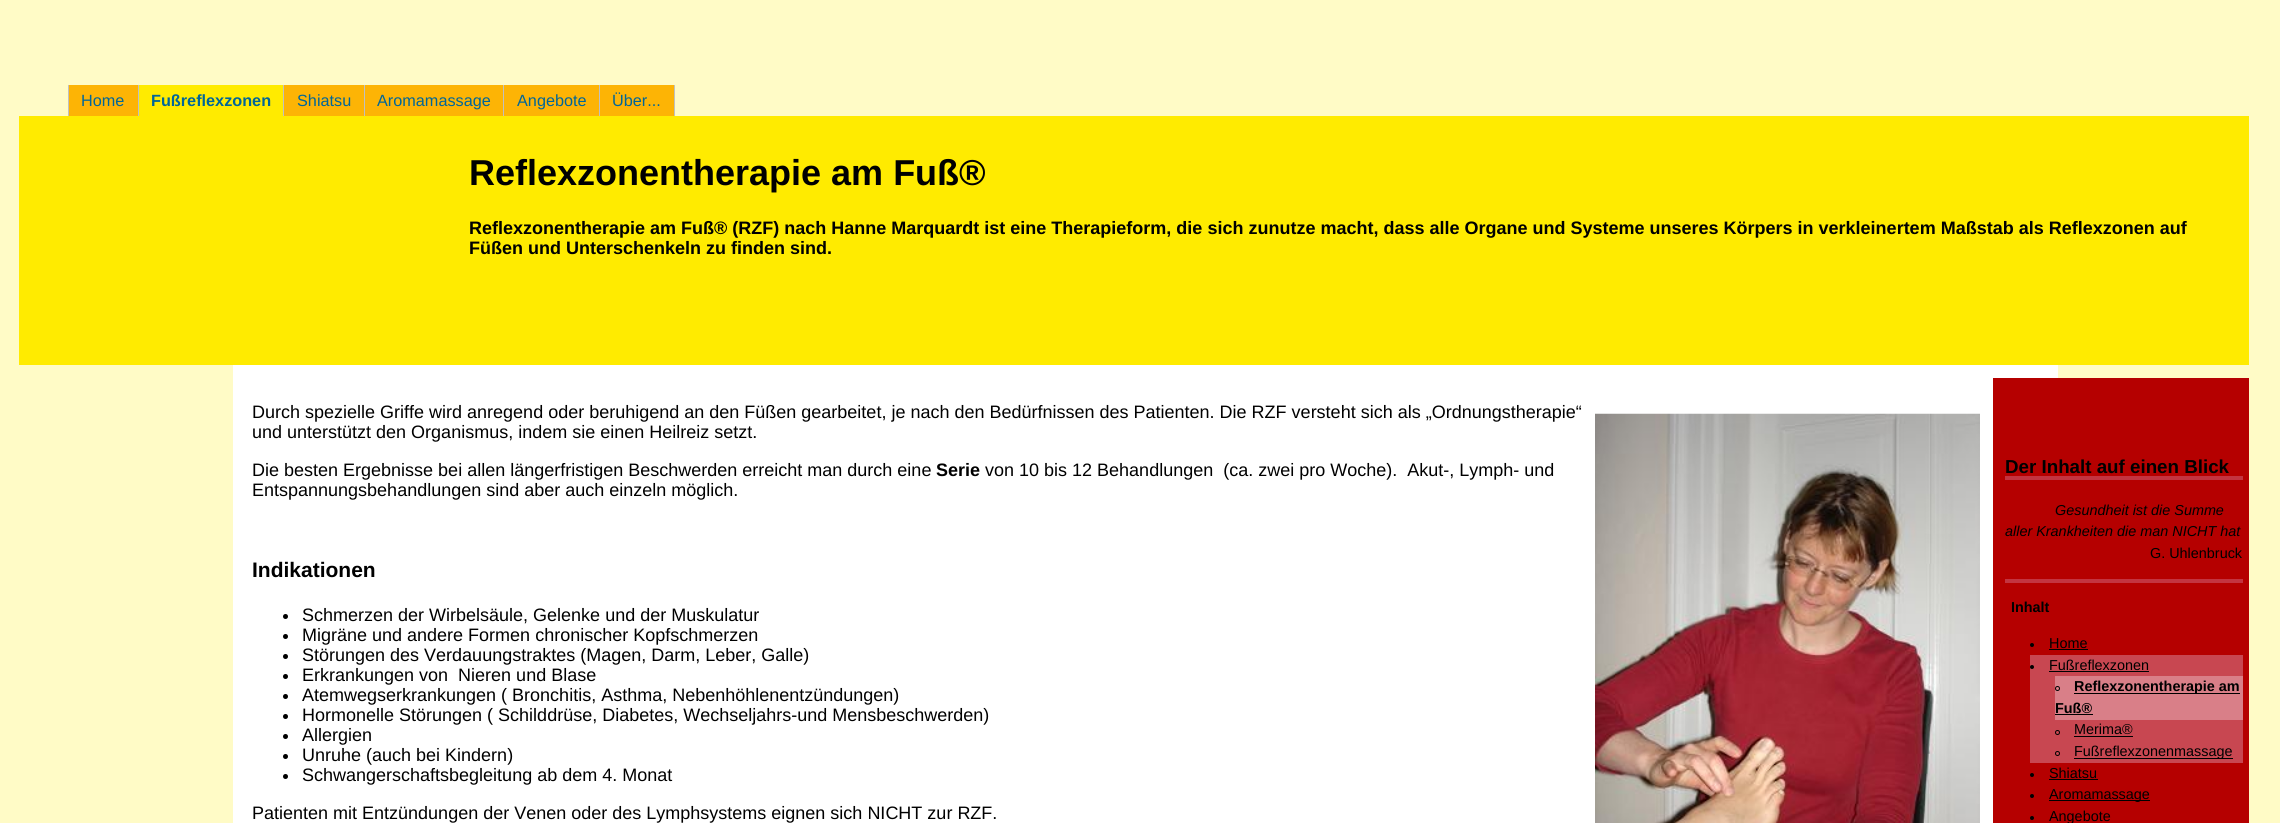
#include <cairo.h>
#include <math.h>
#include <stddef.h>

typedef struct { const char *family; double size; int italic, bold; unsigned color; } style_t;
static cairo_t *ctx;

static void ink(unsigned color) {
    cairo_set_source_rgb(ctx, (color >> 16) / 255.0, (color >> 8 & 255) / 255.0, (color & 255) / 255.0);
}

static void write(double x, double y, const char *s, const style_t *st) {
    cairo_select_font_face(ctx, st->family, st->italic ? CAIRO_FONT_SLANT_ITALIC : CAIRO_FONT_SLANT_NORMAL,
        st->bold ? CAIRO_FONT_WEIGHT_BOLD : CAIRO_FONT_WEIGHT_NORMAL);
    cairo_set_font_size(ctx, st->size);
    ink(st->color);
    cairo_move_to(ctx, x, y);
    cairo_show_text(ctx, s);
}

static void block(double x, double y, double w, double h, unsigned color) {
    ink(color);
    cairo_rectangle(ctx, x, y, w, h);
    cairo_fill(ctx);
}

static void paste(const char *path, double x, double y, double w, double h) {
    cairo_surface_t *image = cairo_image_surface_create_from_png(path);
    cairo_save(ctx);
    cairo_set_source_surface(ctx, image, x, y);
    cairo_rectangle(ctx, x, y, w, h);
    cairo_fill(ctx);
    cairo_restore(ctx);
    cairo_surface_destroy(image);
}

static const style_t s1 = {"Liberation Sans", 16.25, 0, 0, 0x006699};
static const style_t s2 = {"Liberation Sans", 16.25, 0, 1, 0x006699};
static const style_t s3 = {"Liberation Sans", 36, 0, 1, 0x000000};
static const style_t s4 = {"Liberation Sans", 18, 0, 1, 0x000000};
static const style_t s5 = {"Liberation Sans", 18, 0, 0, 0x000000};
static const style_t s6 = {"Liberation Sans", 21, 0, 1, 0x000000};
static const style_t s7 = {"Liberation Sans", 18.75, 0, 1, 0x000000};
static const style_t s8 = {"Liberation Sans", 14.4, 1, 0, 0x000000};
static const style_t s9 = {"Liberation Sans", 14.4, 0, 0, 0x000000};
static const style_t s10 = {"Liberation Sans", 14.4, 0, 1, 0x000000};

int main(void) {
    cairo_surface_t *surface = cairo_image_surface_create(CAIRO_FORMAT_RGB24, 2280, 823);
    ctx = cairo_create(surface);
    cairo_font_options_t *options = cairo_font_options_create();
    cairo_font_options_set_hint_metrics(options, CAIRO_HINT_METRICS_OFF);
    cairo_font_options_set_hint_style(options, CAIRO_HINT_STYLE_NONE);
    cairo_set_font_options(ctx, options);
    cairo_set_miter_limit(ctx, 4);
    ink(0xfffbc6);
    cairo_paint(ctx);
    block(69, 85, 69, 31, 0xfdb405);
    block(68, 85, 1, 31, 0xc0c0c0);
    write(81, 106, "Home", &s1);
    block(139, 85, 144, 31, 0xffeb00);
    block(138, 85, 1, 31, 0xc0c0c0);
    write(151, 106, "Fußreflexzonen", &s2);
    block(284, 85, 80, 31, 0xfdb405);
    block(283, 85, 1, 31, 0xc0c0c0);
    write(297, 106, "Shiatsu", &s1);
    block(365, 85, 138, 31, 0xfdb405);
    block(364, 85, 1, 31, 0xc0c0c0);
    write(377, 106, "Aromamassage", &s1);
    block(504, 85, 95, 31, 0xfdb405);
    block(503, 85, 1, 31, 0xc0c0c0);
    write(517, 106, "Angebote", &s1);
    block(600, 85, 74, 31, 0xfdb405);
    block(674, 85, 1, 31, 0xc0c0c0);
    block(599, 85, 1, 31, 0xc0c0c0);
    write(612, 106, "Über...", &s1);
    block(19, 116, 2230, 249, 0xffeb00);
    write(469, 185, "Reflexzonentherapie am Fuß®", &s3);
    write(469, 234, "Reflexzonentherapie am Fuß® (RZF) nach Hanne Marquardt ist eine Therapieform, die sich zunutze macht, dass alle Organe und Systeme unseres Körpers in verkleinertem Maßstab als Reflexzonen auf", &s4);
    write(469, 254, "Füßen und Unterschenkeln zu finden sind.", &s4);
    block(233, 365, 1825, 458, 0xffffff);
    write(252, 418, "Durch spezielle Griffe wird anregend oder beruhigend an den Füßen gearbeitet, je nach den Bedürfnissen des Patienten. Die RZF versteht sich als „Ordnungstherapie“", &s5);
    write(252, 438, "und unterstützt den Organismus, indem sie einen Heilreiz setzt.", &s5);
    paste("pic1.png", 1595, 413, 385, 410);
    write(252, 476, "Die besten Ergebnisse bei allen längerfristigen Beschwerden erreicht man durch eine", &s5);
    write(936, 476, "Serie", &s4);
    write(985, 476, "von 10 bis 12 Behandlungen  (ca. zwei pro Woche).  Akut-, Lymph- und", &s5);
    write(252, 496, "Entspannungsbehandlungen sind aber auch einzeln möglich.", &s5);
    write(252, 577, "Indikationen", &s6);
    cairo_new_path(ctx);
    cairo_arc(ctx, 285.5, 616.5, 2.5, 0, 2 * M_PI);
    cairo_fill(ctx);
    write(302, 621, "Schmerzen der Wirbelsäule, Gelenke und der Muskulatur", &s5);
    cairo_new_path(ctx);
    cairo_arc(ctx, 285.5, 636.5, 2.5, 0, 2 * M_PI);
    cairo_fill(ctx);
    write(302, 641, "Migräne und andere Formen chronischer Kopfschmerzen", &s5);
    cairo_new_path(ctx);
    cairo_arc(ctx, 285.5, 656.5, 2.5, 0, 2 * M_PI);
    cairo_fill(ctx);
    write(302, 661, "Störungen des Verdauungstraktes (Magen, Darm, Leber, Galle)", &s5);
    cairo_new_path(ctx);
    cairo_arc(ctx, 285.5, 676.5, 2.5, 0, 2 * M_PI);
    cairo_fill(ctx);
    write(302, 681, "Erkrankungen von  Nieren und Blase", &s5);
    cairo_new_path(ctx);
    cairo_arc(ctx, 285.5, 696.5, 2.5, 0, 2 * M_PI);
    cairo_fill(ctx);
    write(302, 701, "Atemwegserkrankungen ( Bronchitis, Asthma, Nebenhöhlenentzündungen)", &s5);
    cairo_new_path(ctx);
    cairo_arc(ctx, 285.5, 716.5, 2.5, 0, 2 * M_PI);
    cairo_fill(ctx);
    write(302, 721, "Hormonelle Störungen ( Schilddrüse, Diabetes, Wechseljahrs-und Mensbeschwerden)", &s5);
    cairo_new_path(ctx);
    cairo_arc(ctx, 285.5, 736.5, 2.5, 0, 2 * M_PI);
    cairo_fill(ctx);
    write(302, 741, "Allergien", &s5);
    cairo_new_path(ctx);
    cairo_arc(ctx, 285.5, 756.5, 2.5, 0, 2 * M_PI);
    cairo_fill(ctx);
    write(302, 761, "Unruhe (auch bei Kindern)", &s5);
    cairo_new_path(ctx);
    cairo_arc(ctx, 285.5, 776.5, 2.5, 0, 2 * M_PI);
    cairo_fill(ctx);
    write(302, 781, "Schwangerschaftsbegleitung ab dem 4. Monat", &s5);
    write(252, 819, "Patienten mit Entzündungen der Venen oder des Lymphsystems eignen sich NICHT zur RZF.", &s5);
    block(1993, 378, 256, 445, 0xb50000);
    block(2005, 476, 238, 4, 0xc33440);
    write(2005, 473, "Der Inhalt auf einen Blick", &s7);
    block(2005, 579, 238, 4, 0xc33440);
    write(2055, 515, "Gesundheit ist die Summe", &s8);
    write(2005, 536, "aller Krankheiten die man NICHT hat", &s8);
    write(2150, 558, "G. Uhlenbruck", &s9);
    write(2011, 612, "Inhalt", &s10);
    cairo_new_path(ctx);
    cairo_arc(ctx, 2032, 645, 2, 0, 2 * M_PI);
    cairo_fill(ctx);
    write(2049, 648, "Home", &s9);
    block(2049, 649, 39, 1, 0x000000);
    block(2030, 655, 213, 108, 0xc84751);
    ink(0x000000);
    cairo_new_path(ctx);
    cairo_arc(ctx, 2032, 667, 2, 0, 2 * M_PI);
    cairo_fill(ctx);
    write(2049, 670, "Fußreflexzonen", &s9);
    block(2049, 671, 100, 1, 0x000000);
    block(2055, 676, 188, 44, 0xd97f88);
    cairo_new_path(ctx);
    cairo_arc(ctx, 2057.5, 688.5, 2, 0, 2 * M_PI);
    ink(0x000000);
    cairo_set_line_width(ctx, 1);
    cairo_stroke(ctx);
    block(2074, 693, 166, 1, 0x000000);
    write(2074, 691, "Reflexzonentherapie am", &s10);
    write(2055, 713, "Fuß®", &s10);
    block(2055, 714, 38, 1, 0x000000);
    cairo_new_path(ctx);
    cairo_arc(ctx, 2057.5, 732.5, 2, 0, 2 * M_PI);
    cairo_stroke(ctx);
    write(2074, 734, "Merima®", &s9);
    block(2074, 736, 59, 1, 0x000000);
    cairo_new_path(ctx);
    cairo_arc(ctx, 2057.5, 753.5, 2, 0, 2 * M_PI);
    cairo_stroke(ctx);
    block(2074, 758, 159, 1, 0x000000);
    write(2074, 756, "Fußreflexzonenmassage", &s9);
    cairo_new_path(ctx);
    cairo_arc(ctx, 2032, 775, 2, 0, 2 * M_PI);
    cairo_fill(ctx);
    write(2049, 778, "Shiatsu", &s9);
    block(2049, 779, 49, 1, 0x000000);
    cairo_new_path(ctx);
    cairo_arc(ctx, 2032, 796, 2, 0, 2 * M_PI);
    cairo_fill(ctx);
    block(2049, 800, 101, 1, 0x000000);
    write(2049, 799, "Aromamassage", &s9);
    cairo_new_path(ctx);
    cairo_arc(ctx, 2032, 818, 2, 0, 2 * M_PI);
    cairo_fill(ctx);
    write(2049, 821, "Angebote", &s9);
    cairo_surface_write_to_png(surface, "screenshot.png");
    cairo_font_options_destroy(options);
    cairo_destroy(ctx);
    cairo_surface_destroy(surface);
    return 0;
}
